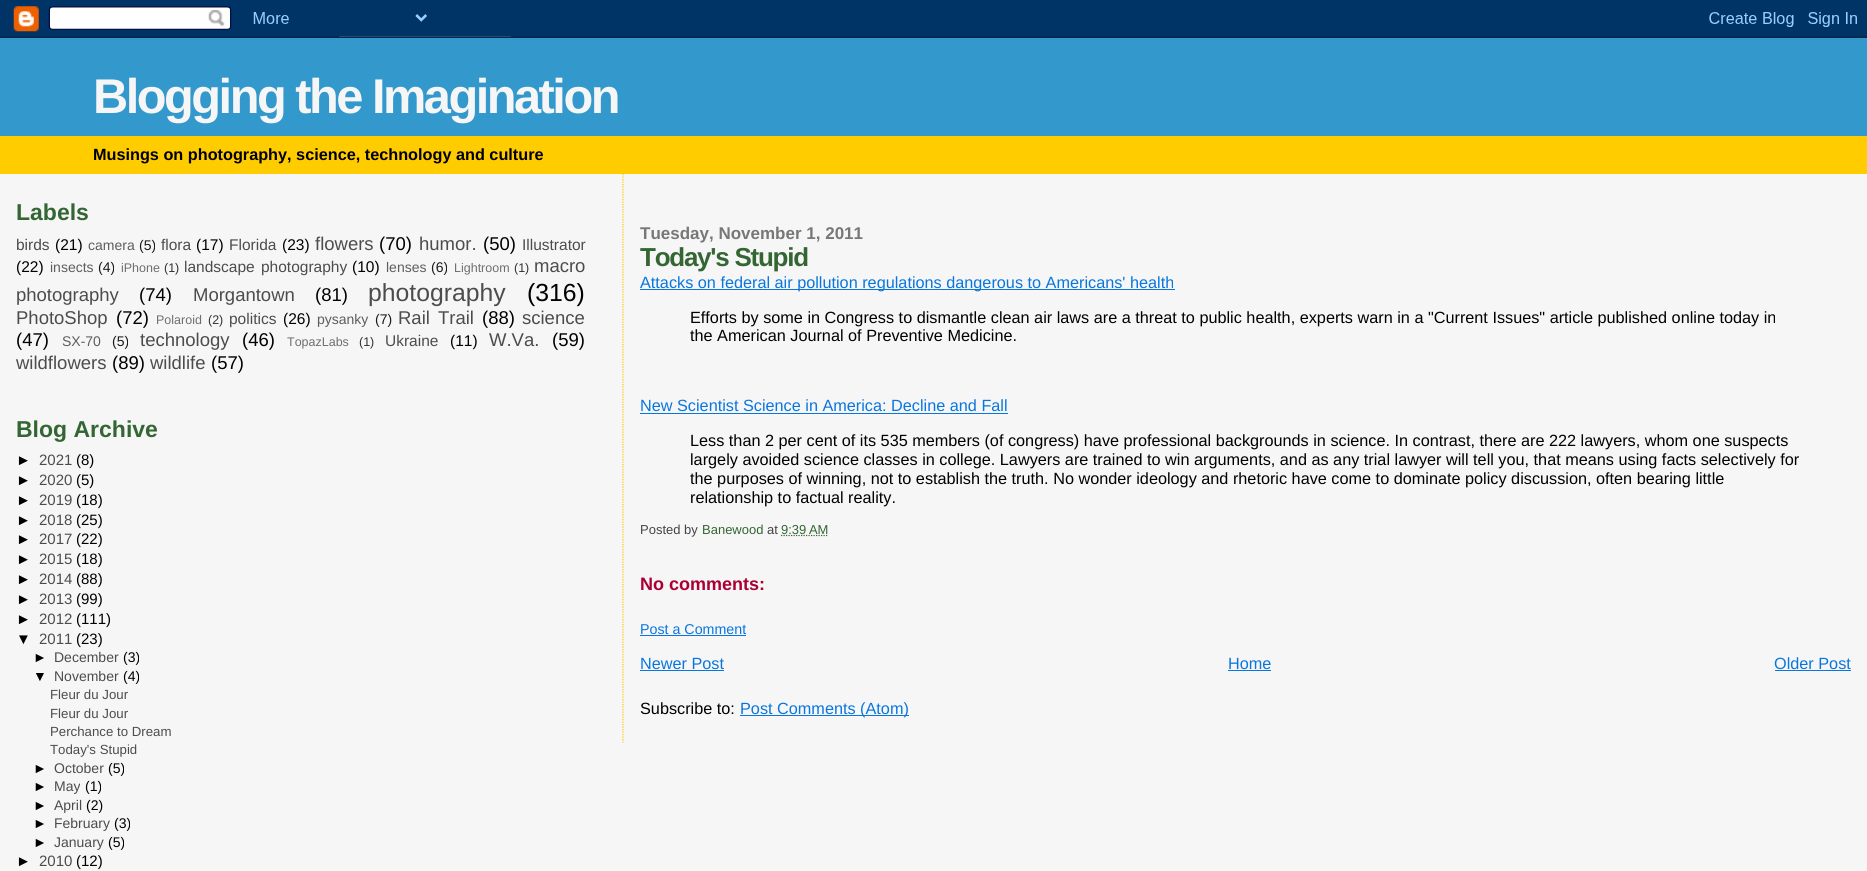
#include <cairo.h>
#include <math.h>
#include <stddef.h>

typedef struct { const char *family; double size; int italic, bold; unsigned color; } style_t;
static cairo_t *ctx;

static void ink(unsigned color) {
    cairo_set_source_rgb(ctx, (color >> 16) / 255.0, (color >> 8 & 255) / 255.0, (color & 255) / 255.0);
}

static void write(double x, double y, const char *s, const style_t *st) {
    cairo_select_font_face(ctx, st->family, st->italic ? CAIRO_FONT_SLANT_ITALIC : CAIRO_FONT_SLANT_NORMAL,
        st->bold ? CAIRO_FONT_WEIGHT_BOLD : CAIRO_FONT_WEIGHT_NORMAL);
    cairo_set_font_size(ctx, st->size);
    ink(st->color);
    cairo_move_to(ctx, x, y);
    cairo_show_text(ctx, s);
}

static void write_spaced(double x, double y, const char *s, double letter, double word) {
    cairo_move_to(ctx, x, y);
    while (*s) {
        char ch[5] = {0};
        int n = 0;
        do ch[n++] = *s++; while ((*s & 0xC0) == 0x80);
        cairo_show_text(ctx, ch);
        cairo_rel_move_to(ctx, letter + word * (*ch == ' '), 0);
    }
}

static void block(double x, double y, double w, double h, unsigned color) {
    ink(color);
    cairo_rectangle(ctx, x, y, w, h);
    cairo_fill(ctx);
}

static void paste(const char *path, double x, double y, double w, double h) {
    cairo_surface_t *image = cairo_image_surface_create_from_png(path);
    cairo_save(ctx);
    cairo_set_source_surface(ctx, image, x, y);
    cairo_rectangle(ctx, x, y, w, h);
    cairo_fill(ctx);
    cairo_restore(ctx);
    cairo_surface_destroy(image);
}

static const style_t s1 = {"Liberation Sans", 16.25, 0, 1, 0x000000};
static const style_t s2 = {"Liberation Sans", 23, 0, 1, 0x336633};
static const style_t s3 = {"Liberation Sans", 15.5, 0, 0, 0x4c4c4c};
static const style_t s4 = {"Liberation Sans", 15.5, 0, 0, 0x000000};
static const style_t s5 = {"Liberation Sans", 14, 0, 0, 0x5d5d5d};
static const style_t s6 = {"Liberation Sans", 14, 0, 0, 0x191919};
static const style_t s7 = {"Liberation Sans", 18.5, 0, 0, 0x4c4c4c};
static const style_t s8 = {"Liberation Sans", 18.5, 0, 0, 0x000000};
static const style_t s9 = {"Liberation Sans", 12.5, 0, 0, 0x6e6e6e};
static const style_t s10 = {"Liberation Sans", 12.5, 0, 0, 0x313131};
static const style_t s11 = {"Liberation Sans", 24.75, 0, 0, 0x4c4c4c};
static const style_t s12 = {"Liberation Sans", 24.75, 0, 0, 0x000000};
static const style_t s13 = {"Liberation Sans", 15, 0, 0, 0x000000};
static const style_t s14 = {"Liberation Sans", 15, 0, 0, 0x4c4c4c};
static const style_t s15 = {"Liberation Sans", 14, 0, 0, 0x000000};
static const style_t s16 = {"Liberation Sans", 14, 0, 0, 0x4c4c4c};
static const style_t s17 = {"Liberation Sans", 13.25, 0, 0, 0x4c4c4c};
static const style_t s18 = {"Liberation Sans", 17, 0, 1, 0x777777};
static const style_t s19 = {"Liberation Sans", 16.25, 0, 0, 0x0876de};
static const style_t s20 = {"Liberation Sans", 16.25, 0, 0, 0x000000};
static const style_t s21 = {"Liberation Sans", 13, 0, 0, 0x444444};
static const style_t s22 = {"Liberation Sans", 13, 0, 0, 0x336633};
static const style_t s23 = {"Liberation Sans", 18, 0, 1, 0xaa0033};
static const style_t s24 = {"Liberation Sans", 14.25, 0, 0, 0x0876de};

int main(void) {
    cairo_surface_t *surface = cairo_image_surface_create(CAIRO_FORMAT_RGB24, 1867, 871);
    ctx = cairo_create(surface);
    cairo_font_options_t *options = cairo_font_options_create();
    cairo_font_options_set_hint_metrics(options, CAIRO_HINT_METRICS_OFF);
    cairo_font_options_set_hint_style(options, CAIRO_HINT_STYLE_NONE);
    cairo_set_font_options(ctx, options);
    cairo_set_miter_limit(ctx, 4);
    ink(0xf6f6f6);
    cairo_paint(ctx);
    paste("pic1.png", 0, 0, 1867, 38);
    block(0, 136, 1867, 38, 0xffcc00);
    block(0, 38, 1867, 98, 0x3399cc);
    cairo_select_font_face(ctx, "Liberation Sans", CAIRO_FONT_SLANT_NORMAL, CAIRO_FONT_WEIGHT_BOLD);
    cairo_set_font_size(ctx, 48.75);
    ink(0xf6f6f6);
    write_spaced(93, 113, "Blogging the Imagination", -2.5, 0);
    write(93, 160, "Musings on photography, science, technology and culture", &s1);
    write(16, 220, "Labels", &s2);
    write(16, 250, "birds", &s3);
    write(55, 250, "(21)", &s4);
    write(88, 250, "camera", &s5);
    write(139, 250, "(5)", &s6);
    write(161, 250, "flora", &s3);
    write(196, 250, "(17)", &s4);
    write(229, 250, "Florida", &s3);
    write(282, 250, "(23)", &s4);
    write(315, 250, "flowers", &s7);
    write(379, 250, "(70)", &s8);
    write(419, 250, "humor.", &s7);
    write(483, 250, "(50)", &s8);
    write(522, 250, "Illustrator", &s3);
    write(16, 272, "(22)", &s4);
    write(50, 272, "insects", &s5);
    write(98, 272, "(4)", &s6);
    write(121, 272, "iPhone", &s9);
    write(164, 272, "(1)", &s10);
    cairo_set_font_size(ctx, 15.5);
    ink(0x4c4c4c);
    write_spaced(184, 272, "landscape photography", 0, 2);
    write(352, 272, "(10)", &s4);
    write(386, 272, "lenses", &s5);
    write(431, 272, "(6)", &s6);
    write(454, 272, "Lightroom", &s9);
    write(514, 272, "(1)", &s10);
    write(534, 272, "macro", &s7);
    write(16, 301, "photography", &s7);
    write(139, 301, "(74)", &s8);
    write(193, 301, "Morgantown", &s7);
    write(315, 301, "(81)", &s8);
    write(368, 301, "photography", &s11);
    write(527, 301, "(316)", &s12);
    write(16, 324, "PhotoShop", &s7);
    write(116, 324, "(72)", &s8);
    write(156, 324, "Polaroid", &s9);
    write(208, 324, "(2)", &s10);
    write(229, 324, "politics", &s3);
    write(283, 324, "(26)", &s4);
    write(317, 324, "pysanky", &s5);
    write(375, 324, "(7)", &s6);
    cairo_set_font_size(ctx, 18.5);
    ink(0x4c4c4c);
    write_spaced(398, 324, "Rail Trail", 0, 3);
    write(482, 324, "(88)", &s8);
    write(522, 324, "science", &s7);
    write(16, 346, "(47)", &s8);
    write(62, 346, "SX-70", &s5);
    write(112, 346, "(5)", &s6);
    write(140, 346, "technology", &s7);
    write(242, 346, "(46)", &s8);
    write(287, 346, "TopazLabs", &s9);
    write(359, 346, "(1)", &s10);
    write(385, 346, "Ukraine", &s3);
    write(450, 346, "(11)", &s4);
    write(489, 346, "W.Va.", &s7);
    write(552, 346, "(59)", &s8);
    write(16, 369, "wildflowers", &s7);
    write(112, 369, "(89)", &s8);
    write(150, 369, "wildlife", &s7);
    write(211, 369, "(57)", &s8);
    write(16, 437, "Blog Archive", &s2);
    write(16, 465, "►", &s13);
    write(39, 465, "2021", &s14);
    write(76, 465, "(8)", &s13);
    write(16, 485, "►", &s13);
    write(39, 485, "2020", &s14);
    write(76, 485, "(5)", &s13);
    write(16, 505, "►", &s13);
    write(39, 505, "2019", &s14);
    write(76, 505, "(18)", &s13);
    write(16, 525, "►", &s13);
    write(39, 525, "2018", &s14);
    write(76, 525, "(25)", &s13);
    write(16, 544, "►", &s13);
    write(39, 544, "2017", &s14);
    write(76, 544, "(22)", &s13);
    write(16, 564, "►", &s13);
    write(39, 564, "2015", &s14);
    write(76, 564, "(18)", &s13);
    write(16, 584, "►", &s13);
    write(39, 584, "2014", &s14);
    write(76, 584, "(88)", &s13);
    write(16, 604, "►", &s13);
    write(39, 604, "2013", &s14);
    write(76, 604, "(99)", &s13);
    write(16, 624, "►", &s13);
    write(39, 624, "2012", &s14);
    write(76, 624, "(111)", &s13);
    write(16, 644, "▼", &s13);
    write(39, 644, "2011", &s14);
    write(76, 644, "(23)", &s13);
    write(33, 662, "►", &s15);
    write(54, 662, "December", &s16);
    write(123, 662, "(3)", &s15);
    write(33, 681, "▼", &s15);
    write(54, 681, "November", &s16);
    write(123, 681, "(4)", &s15);
    write(50, 699, "Fleur du Jour", &s17);
    write(50, 718, "Fleur du Jour", &s17);
    write(50, 736, "Perchance to Dream", &s17);
    write(50, 754, "Today's Stupid", &s17);
    write(33, 773, "►", &s15);
    write(54, 773, "October", &s16);
    write(108, 773, "(5)", &s15);
    write(33, 791, "►", &s15);
    write(54, 791, "May", &s16);
    write(85, 791, "(1)", &s15);
    write(33, 810, "►", &s15);
    write(54, 810, "April", &s16);
    write(86, 810, "(2)", &s15);
    write(33, 828, "►", &s15);
    write(54, 828, "February", &s16);
    write(114, 828, "(3)", &s15);
    write(33, 847, "►", &s15);
    write(54, 847, "January", &s16);
    write(108, 847, "(5)", &s15);
    write(16, 866, "►", &s13);
    write(39, 866, "2010", &s14);
    write(76, 866, "(12)", &s13);
    cairo_new_path(ctx);
    cairo_move_to(ctx, 623, 174);
    cairo_line_to(ctx, 623, 742.5);
    ink(0xffcc00);
    cairo_set_line_width(ctx, 1.2);
    cairo_set_dash(ctx, (double[]){1.25, 1.25}, 2, 0);
    cairo_stroke(ctx);
    write(640, 239, "Tuesday, November 1, 2011", &s18);
    cairo_set_font_size(ctx, 26);
    ink(0x336633);
    write_spaced(640, 266, "Today's Stupid", -1.25, 0);
    block(640, 289, 535, 1, 0x0876de);
    write(640, 288, "Attacks on federal air pollution regulations dangerous to Americans' health", &s19);
    write(690, 323, "Efforts by some in Congress to dismantle clean air laws are a threat to public health, experts warn in a \"Current Issues\" article published online today in", &s20);
    write(690, 341, "the American Journal of Preventive Medicine.", &s20);
    write(640, 411, "New Scientist Science in America: Decline and Fall", &s19);
    block(640, 413, 368, 1, 0x0876de);
    write(690, 446, "Less than 2 per cent of its 535 members (of congress) have professional backgrounds in science. In contrast, there are 222 lawyers, whom one suspects", &s20);
    write(690, 465, "largely avoided science classes in college. Lawyers are trained to win arguments, and as any trial lawyer will tell you, that means using facts selectively for", &s20);
    write(690, 484, "the purposes of winning, not to establish the truth. No wonder ideology and rhetoric have come to dominate policy discussion, often bearing little", &s20);
    write(690, 503, "relationship to factual reality.", &s20);
    write(640, 534, "Posted by", &s21);
    write(702, 534, "Banewood", &s22);
    write(767, 534, "at", &s21);
    cairo_new_path(ctx);
    cairo_move_to(ctx, 781, 535.5);
    cairo_line_to(ctx, 828.5, 535.5);
    ink(0x336633);
    cairo_stroke(ctx);
    write(781, 534, "9:39 AM", &s22);
    write(640, 590, "No comments:", &s23);
    write(640, 634, "Post a Comment", &s24);
    block(640, 635, 106, 1, 0x0876de);
    write(640, 669, "Newer Post", &s19);
    block(640, 670, 84, 1, 0x0876de);
    write(1228, 669, "Home", &s19);
    block(1228, 670, 43, 1, 0x0876de);
    write(1774, 669, "Older Post", &s19);
    block(1775, 670, 76, 1, 0x0876de);
    write(640, 714, "Subscribe to:", &s20);
    block(740, 715, 169, 1, 0x0876de);
    write(740, 714, "Post Comments (Atom)", &s19);
    cairo_surface_write_to_png(surface, "screenshot.png");
    cairo_font_options_destroy(options);
    cairo_destroy(ctx);
    cairo_surface_destroy(surface);
    return 0;
}
